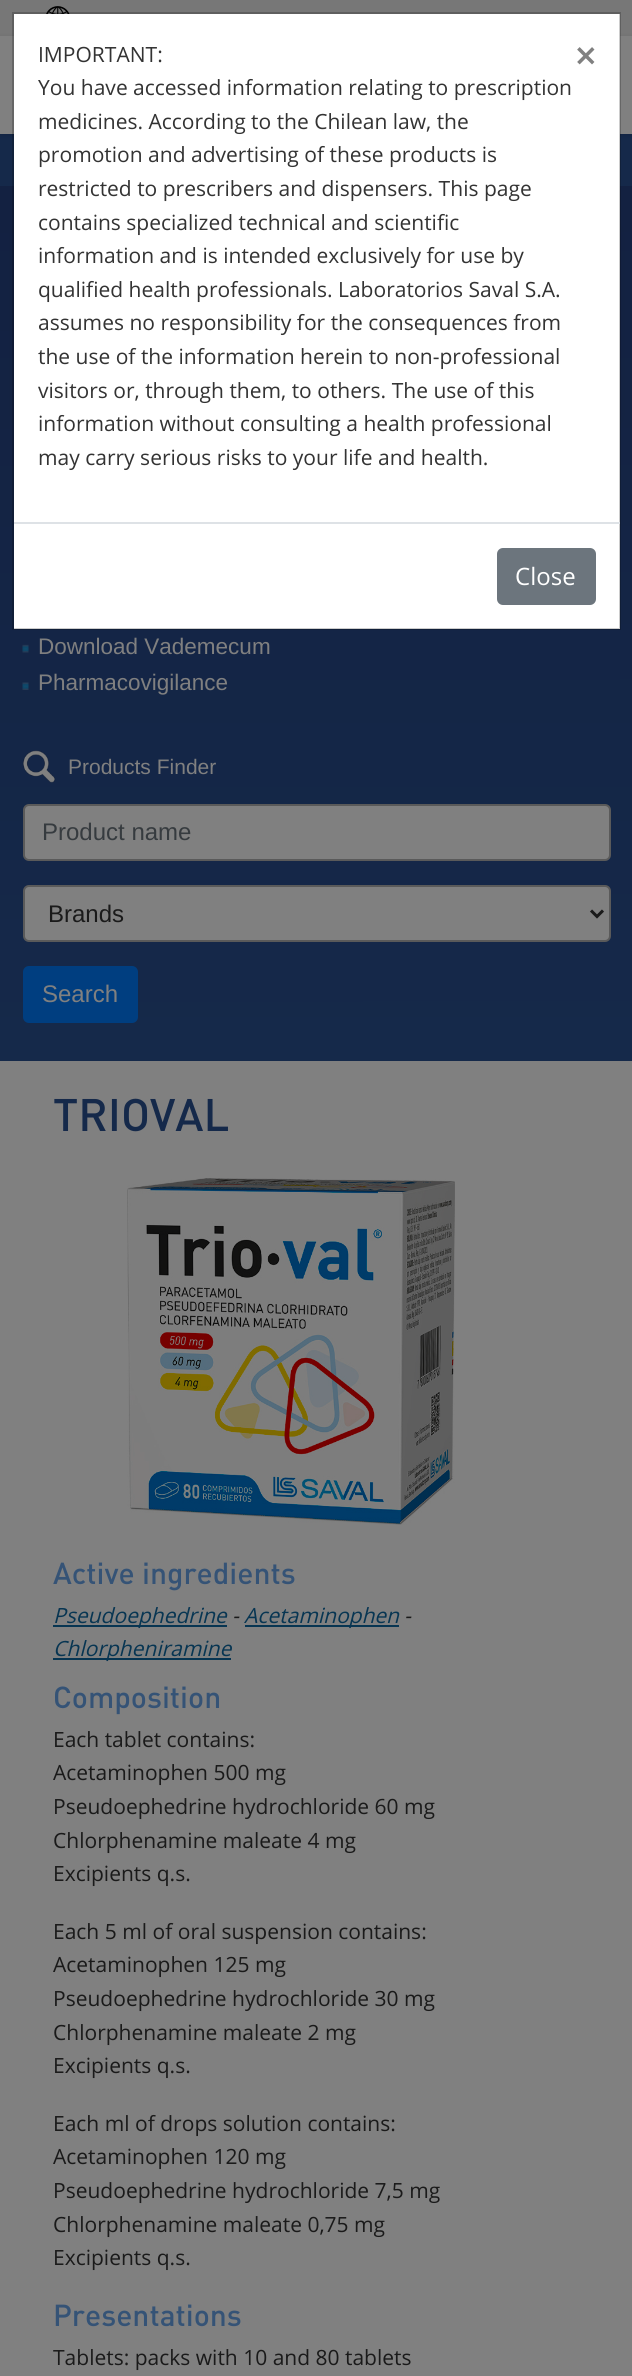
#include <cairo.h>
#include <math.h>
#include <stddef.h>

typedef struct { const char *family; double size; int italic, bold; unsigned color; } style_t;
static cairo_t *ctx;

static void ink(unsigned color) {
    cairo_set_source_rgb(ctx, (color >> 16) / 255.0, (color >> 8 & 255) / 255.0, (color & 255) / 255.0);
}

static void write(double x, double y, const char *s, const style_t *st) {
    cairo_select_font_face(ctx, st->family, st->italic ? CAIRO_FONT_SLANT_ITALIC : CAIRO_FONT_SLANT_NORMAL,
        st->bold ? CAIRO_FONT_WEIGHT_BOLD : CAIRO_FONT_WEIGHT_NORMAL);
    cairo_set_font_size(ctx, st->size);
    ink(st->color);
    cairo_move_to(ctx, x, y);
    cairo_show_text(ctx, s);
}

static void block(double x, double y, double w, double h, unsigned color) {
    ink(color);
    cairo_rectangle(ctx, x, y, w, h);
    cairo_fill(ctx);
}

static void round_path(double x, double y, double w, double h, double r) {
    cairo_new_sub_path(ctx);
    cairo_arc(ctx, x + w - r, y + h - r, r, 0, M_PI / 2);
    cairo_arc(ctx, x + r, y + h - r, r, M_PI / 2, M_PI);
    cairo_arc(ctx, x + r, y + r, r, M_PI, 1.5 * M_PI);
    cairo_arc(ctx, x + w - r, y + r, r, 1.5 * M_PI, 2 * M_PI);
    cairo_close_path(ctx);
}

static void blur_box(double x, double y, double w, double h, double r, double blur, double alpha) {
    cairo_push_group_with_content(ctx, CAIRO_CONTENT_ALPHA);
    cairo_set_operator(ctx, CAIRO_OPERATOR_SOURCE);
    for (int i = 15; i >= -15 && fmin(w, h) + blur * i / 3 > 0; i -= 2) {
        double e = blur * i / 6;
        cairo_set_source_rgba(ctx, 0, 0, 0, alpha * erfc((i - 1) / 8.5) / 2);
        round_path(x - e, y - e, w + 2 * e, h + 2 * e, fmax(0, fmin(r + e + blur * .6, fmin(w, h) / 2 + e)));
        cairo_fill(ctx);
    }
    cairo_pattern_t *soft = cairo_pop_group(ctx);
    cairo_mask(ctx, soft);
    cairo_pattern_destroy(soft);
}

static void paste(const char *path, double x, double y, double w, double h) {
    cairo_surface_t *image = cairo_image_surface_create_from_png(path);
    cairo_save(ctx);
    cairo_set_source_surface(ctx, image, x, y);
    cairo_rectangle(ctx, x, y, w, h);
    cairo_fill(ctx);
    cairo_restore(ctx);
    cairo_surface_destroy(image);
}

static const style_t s1 = {"Open Sans", 21, 0, 0, 0x333333};
static const style_t s2 = {"Open Sans", 36, 0, 1, 0x808080};
static const style_t s3 = {"Open Sans", 24, 0, 0, 0xffffff};
static const style_t s4 = {"DIN Medium", 45, 0, 0, 0x15294a};
static const style_t s5 = {"DIN Medium", 30, 0, 0, 0x355376};
static const style_t s6 = {"Open Sans", 21, 1, 0, 0x073552};
static const style_t s7 = {"Open Sans", 21, 1, 0, 0x1a1a1a};
static const style_t s8 = {"Open Sans", 21, 0, 0, 0x1a1a1a};
static const style_t s9 = {"Liberation Sans", 22.5, 0, 0, 0x808080};
static const style_t s10 = {"Liberation Sans", 21, 0, 0, 0x808080};
static const style_t s11 = {"Liberation Sans", 24, 0, 0, 0x363b3f};
static const style_t s12 = {"Liberation Sans", 24, 0, 0, 0x1a1a1a};
static const style_t s13 = {"Liberation Sans", 24, 0, 0, 0x808080};

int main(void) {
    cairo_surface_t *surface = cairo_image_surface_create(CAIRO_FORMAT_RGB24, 632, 2376);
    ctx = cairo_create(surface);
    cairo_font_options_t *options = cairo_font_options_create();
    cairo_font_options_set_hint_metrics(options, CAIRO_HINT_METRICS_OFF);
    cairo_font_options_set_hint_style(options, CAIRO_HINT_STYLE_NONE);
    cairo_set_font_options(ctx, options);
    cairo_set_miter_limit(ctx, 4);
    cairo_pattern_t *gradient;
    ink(0x808080);
    cairo_paint(ctx);
    block(0, 0, 632, 36, 0x777777);
    paste("pic1.png", 46, 6, 24, 8);
    block(0, 134, 632, 52, 0x15294a);
    ink(0x000000);
    blur_box(0, 38, 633, 97, 0, 3, 0.15);
    block(0, 36, 632, 98, 0x808080);
    gradient = cairo_pattern_create_linear(316, 186, 317, 1061);
    cairo_pattern_add_color_stop_rgba(gradient, 0, 0.075, 0.129, 0.255, 1);
    cairo_pattern_add_color_stop_rgba(gradient, 1, 0.082, 0.161, 0.29, 1);
    cairo_set_source(ctx, gradient);
    cairo_pattern_destroy(gradient);
    cairo_rectangle(ctx, 0, 186, 632, 875);
    cairo_fill(ctx);
    ink(0x000000);
    blur_box(23, 230, 588, 189, 3, 7.5, 0.25);
    block(14, 14, 606, 615, 0xffffff);
    cairo_rectangle(ctx, 13, 13, 607, 616);
    cairo_set_source_rgba(ctx, 0, 0, 0, 0.2);
    cairo_stroke(ctx);
    write(38, 62, "IMPORTANT:", &s1);
    write(38, 95, "You have accessed information relating to prescription", &s1);
    write(38, 129, "medicines. According to the Chilean law, the", &s1);
    write(38, 162, "promotion and advertising of these products is", &s1);
    write(38, 196, "restricted to prescribers and dispensers. This page", &s1);
    write(38, 230, "contains specialized technical and scientific", &s1);
    write(38, 263, "information and is intended exclusively for use by", &s1);
    write(38, 297, "qualified health professionals. Laboratorios Saval S.A.", &s1);
    write(38, 330, "assumes no responsibility for the consequences from", &s1);
    write(38, 364, "the use of the information herein to non-professional", &s1);
    write(38, 398, "visitors or, through them, to others. The use of this", &s1);
    write(38, 431, "information without consulting a health professional", &s1);
    write(38, 465, "may carry serious risks to your life and health.", &s1);
    write(575, 69, "×", &s2);
    block(14, 522, 606, 2, 0xdee2e6);
    ink(0x6c757d);
    round_path(498, 549, 97, 55, 5);
    cairo_fill_preserve(ctx);
    cairo_stroke(ctx);
    write(515, 585, "Close", &s3);
    write(53, 1131, "TRIOVAL", &s4);
    paste("pic2.png", 127, 1178, 328, 347);
    write(53, 1584, "Active ingredients", &s5);
    block(53, 1625, 174, 2, 0x073552);
    write(53, 1623, "Pseudoephedrine", &s6);
    write(232, 1623, "-", &s7);
    block(245, 1625, 154, 2, 0x073552);
    write(244, 1623, "Acetaminophen", &s6);
    write(404, 1623, "-", &s7);
    block(53, 1658, 178, 2, 0x073552);
    write(53, 1656, "Chlorpheniramine", &s6);
    write(53, 1708, "Composition", &s5);
    write(53, 1747, "Each tablet contains:", &s8);
    write(53, 1780, "Acetaminophen 500 mg", &s8);
    write(53, 1814, "Pseudoephedrine hydrochloride 60 mg", &s8);
    write(53, 1848, "Chlorphenamine maleate 4 mg", &s8);
    write(53, 1881, "Excipients q.s.", &s8);
    write(53, 1939, "Each 5 ml of oral suspension contains:", &s8);
    write(53, 1972, "Acetaminophen 125 mg", &s8);
    write(53, 2006, "Pseudoephedrine hydrochloride 30 mg", &s8);
    write(53, 2040, "Chlorphenamine maleate 2 mg", &s8);
    write(53, 2073, "Excipients q.s.", &s8);
    write(53, 2131, "Each ml of drops solution contains:", &s8);
    write(53, 2164, "Acetaminophen 120 mg", &s8);
    write(53, 2198, "Pseudoephedrine hydrochloride 7,5 mg", &s8);
    write(53, 2232, "Chlorphenamine maleate 0,75 mg", &s8);
    write(53, 2265, "Excipients q.s.", &s8);
    write(53, 2326, "Presentations", &s5);
    write(53, 2365, "Tablets: packs with 10 and 80 tablets", &s8);
    paste("pic3.png", 22, 644, 7, 9);
    write(38, 654, "Download Vademecum", &s9);
    paste("pic4.png", 22, 682, 7, 8);
    write(38, 690, "Pharmacovigilance", &s9);
    paste("pic5.png", 22, 750, 34, 33);
    write(68, 774, "Products Finder", &s10);
    round_path(24, 805, 586, 55, 5);
    cairo_fill_preserve(ctx);
    ink(0x5a5a5a);
    cairo_stroke(ctx);
    write(42, 840, "Product name", &s11);
    ink(0x808080);
    round_path(24, 886, 586, 55, 5);
    cairo_fill_preserve(ctx);
    ink(0x5a5a5a);
    cairo_stroke(ctx);
    cairo_new_path(ctx);
    cairo_move_to(ctx, 591, 910.5);
    cairo_line_to(ctx, 597, 916.5);
    cairo_line_to(ctx, 603, 910.5);
    ink(0x1a1a1a);
    cairo_set_line_width(ctx, 3);
    cairo_stroke(ctx);
    write(48, 922, "Brands", &s12);
    ink(0x003e80);
    round_path(24, 967, 113, 55, 5);
    cairo_fill_preserve(ctx);
    cairo_set_line_width(ctx, 2);
    cairo_stroke(ctx);
    write(42, 1002, "Search", &s13);
    cairo_surface_write_to_png(surface, "screenshot.png");
    cairo_font_options_destroy(options);
    cairo_destroy(ctx);
    cairo_surface_destroy(surface);
    return 0;
}
